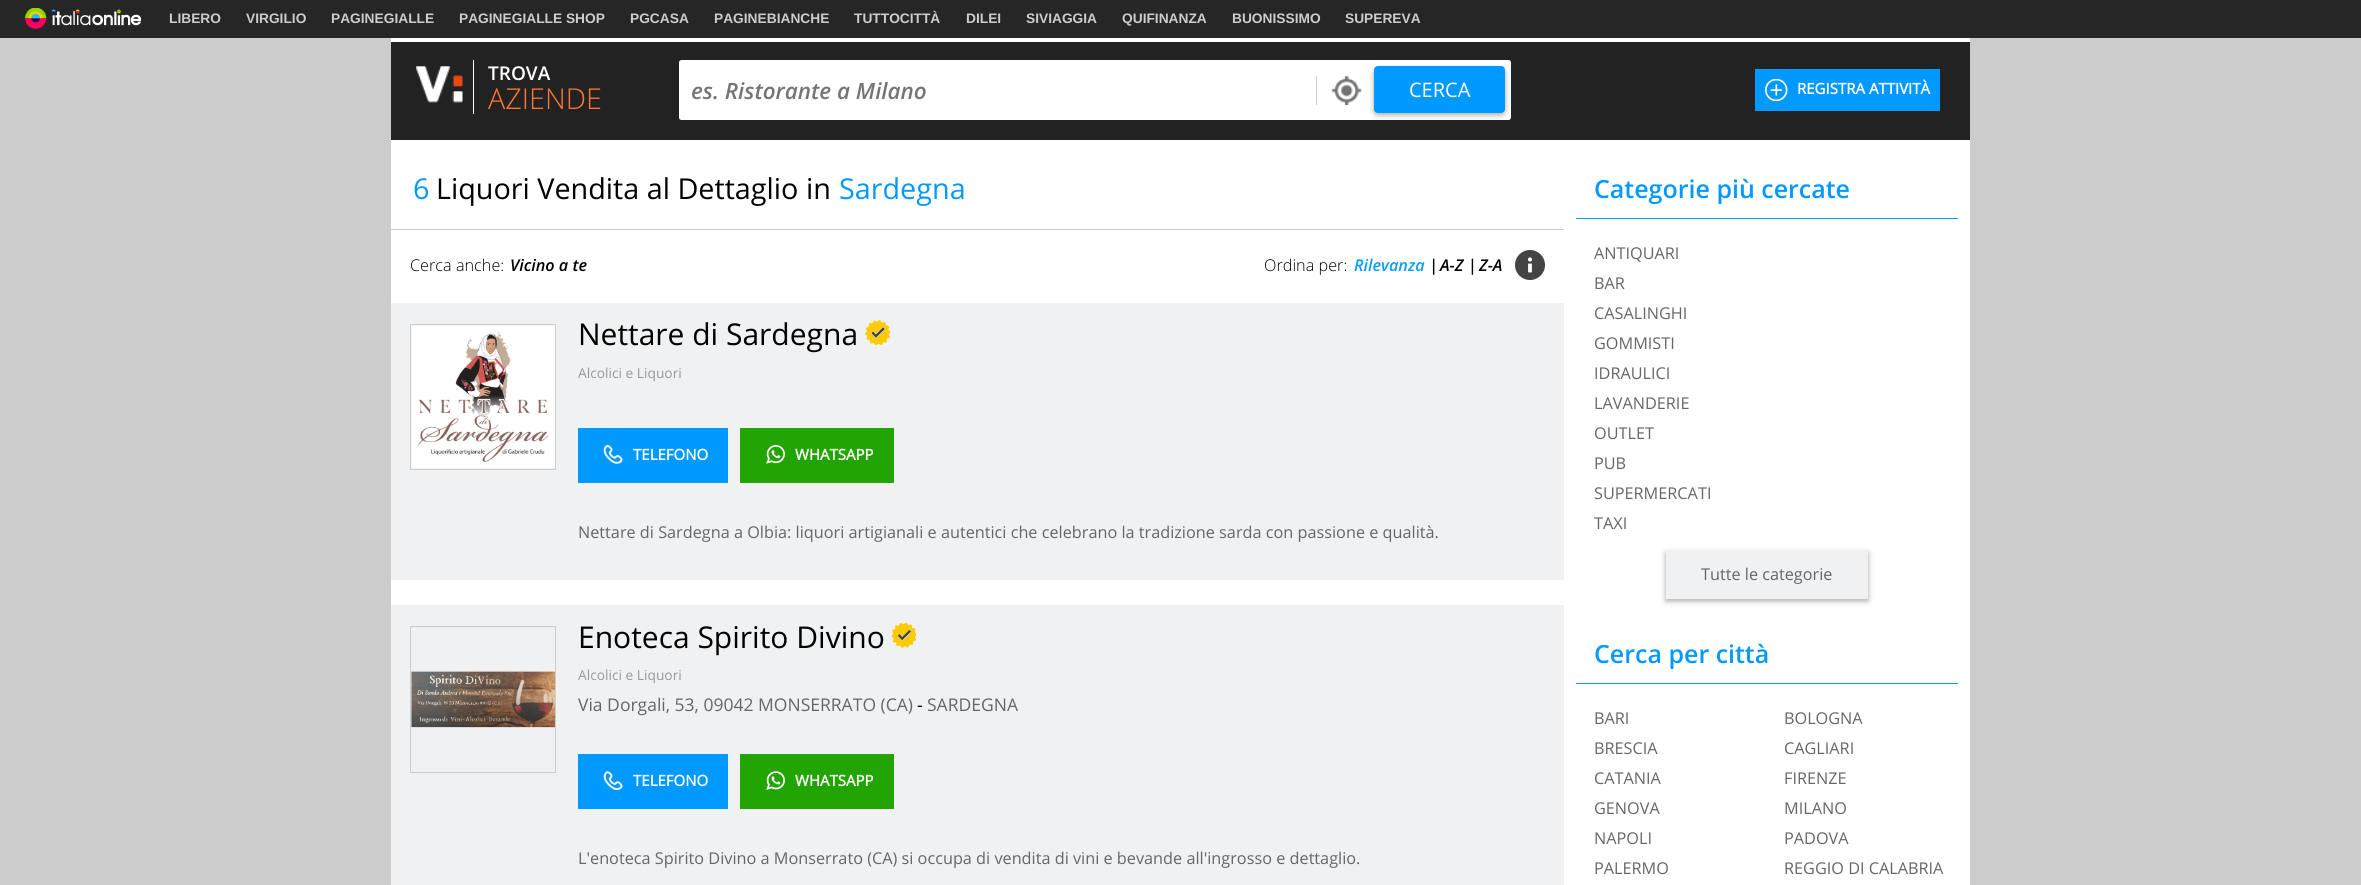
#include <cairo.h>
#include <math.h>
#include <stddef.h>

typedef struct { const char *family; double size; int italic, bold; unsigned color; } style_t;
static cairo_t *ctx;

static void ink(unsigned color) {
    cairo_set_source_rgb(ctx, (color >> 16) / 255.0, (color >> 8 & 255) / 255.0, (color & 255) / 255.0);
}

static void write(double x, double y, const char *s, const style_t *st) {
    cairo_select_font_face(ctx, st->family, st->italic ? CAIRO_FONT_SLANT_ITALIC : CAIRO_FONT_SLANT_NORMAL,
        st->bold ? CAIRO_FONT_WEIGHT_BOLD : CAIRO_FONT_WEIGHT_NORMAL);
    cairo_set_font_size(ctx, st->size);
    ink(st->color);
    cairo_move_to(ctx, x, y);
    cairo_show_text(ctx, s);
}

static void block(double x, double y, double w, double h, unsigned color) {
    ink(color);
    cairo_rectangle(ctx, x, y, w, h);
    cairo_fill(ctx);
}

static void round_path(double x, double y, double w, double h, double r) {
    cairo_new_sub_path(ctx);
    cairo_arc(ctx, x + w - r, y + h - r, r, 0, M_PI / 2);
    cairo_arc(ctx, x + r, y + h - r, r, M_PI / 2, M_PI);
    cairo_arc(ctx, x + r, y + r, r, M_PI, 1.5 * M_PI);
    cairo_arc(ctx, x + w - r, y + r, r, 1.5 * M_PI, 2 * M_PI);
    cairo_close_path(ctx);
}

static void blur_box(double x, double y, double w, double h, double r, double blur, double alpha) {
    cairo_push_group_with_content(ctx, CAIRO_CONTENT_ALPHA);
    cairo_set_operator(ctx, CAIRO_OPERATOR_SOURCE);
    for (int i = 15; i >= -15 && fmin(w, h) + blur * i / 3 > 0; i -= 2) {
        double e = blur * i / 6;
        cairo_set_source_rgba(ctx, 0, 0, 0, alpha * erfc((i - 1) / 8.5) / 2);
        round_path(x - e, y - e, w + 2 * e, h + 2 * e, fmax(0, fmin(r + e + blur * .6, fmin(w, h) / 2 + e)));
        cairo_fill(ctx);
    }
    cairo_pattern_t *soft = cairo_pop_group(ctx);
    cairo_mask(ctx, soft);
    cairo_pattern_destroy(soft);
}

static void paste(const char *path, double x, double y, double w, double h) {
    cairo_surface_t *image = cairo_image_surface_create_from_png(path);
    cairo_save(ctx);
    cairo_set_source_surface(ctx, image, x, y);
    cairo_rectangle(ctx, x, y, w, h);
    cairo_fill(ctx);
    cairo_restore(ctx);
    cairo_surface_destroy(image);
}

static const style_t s1 = {"Liberation Sans", 13.75, 0, 1, 0xcccccc};
static const style_t s2 = {"Open Sans SemiBold", 19, 0, 0, 0xffffff};
static const style_t s3 = {"Open Sans Light", 28.75, 0, 0, 0xff7835};
static const style_t s4 = {"Open Sans SemiBold", 22.5, 1, 0, 0x757575};
static const style_t s5 = {"Open Sans", 20, 0, 0, 0xffffff};
static const style_t s6 = {"Open Sans", 15, 0, 1, 0xffffff};
static const style_t s7 = {"Open Sans", 28.75, 0, 0, 0x0099ff};
static const style_t s8 = {"Open Sans", 28.75, 0, 0, 0x000000};
static const style_t s9 = {"Open Sans Light", 16.25, 0, 0, 0x000000};
static const style_t s10 = {"Open Sans SemiBold", 16.25, 1, 0, 0x000000};
static const style_t s11 = {"Open Sans SemiBold", 16.25, 1, 0, 0x099dff};
static const style_t s12 = {"Open Sans", 30, 0, 0, 0x000000};
static const style_t s13 = {"Open Sans", 13.75, 0, 0, 0x999999};
static const style_t s14 = {"Open Sans", 16.25, 0, 0, 0x666666};
static const style_t s15 = {"Open Sans", 17.5, 0, 0, 0x666666};
static const style_t s16 = {"Open Sans", 17.5, 0, 0, 0x000000};
static const style_t s17 = {"Open Sans SemiBold", 25, 0, 0, 0x0099ff};

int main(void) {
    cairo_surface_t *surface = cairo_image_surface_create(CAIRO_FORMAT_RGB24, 2361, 885);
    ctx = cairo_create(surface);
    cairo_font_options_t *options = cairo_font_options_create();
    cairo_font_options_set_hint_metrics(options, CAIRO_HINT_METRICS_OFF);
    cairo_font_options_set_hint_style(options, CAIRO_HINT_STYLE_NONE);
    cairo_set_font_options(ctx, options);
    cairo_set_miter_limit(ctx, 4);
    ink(0xcccccc);
    cairo_paint(ctx);
    block(0, 0, 2361, 38, 0x262626);
    paste("pic1.png", 25, 8, 116, 21);
    write(169, 23, "LIBERO", &s1);
    write(246, 23, "VIRGILIO", &s1);
    write(331, 23, "PAGINEGIALLE", &s1);
    write(459, 23, "PAGINEGIALLE SHOP", &s1);
    write(630, 23, "PGCASA", &s1);
    write(714, 23, "PAGINEBIANCHE", &s1);
    write(854, 23, "TUTTOCITTÀ", &s1);
    write(966, 23, "DILEI", &s1);
    write(1026, 23, "SIVIAGGIA", &s1);
    write(1122, 23, "QUIFINANZA", &s1);
    write(1232, 23, "BUONISSIMO", &s1);
    write(1345, 23, "SUPEREVA", &s1);
    block(391, 140, 1579, 745, 0xffffff);
    block(391, 42, 1579, 98, 0x222222);
    block(391, 38, 1579, 4, 0xffffff);
    paste("pic2.png", 416, 66, 47, 37);
    block(473, 60, 1, 54, 0xffffff);
    write(488, 80, "TROVA", &s2);
    write(488, 109, "AZIENDE", &s3);
    ink(0xffffff);
    round_path(679, 60, 832, 60, 2.5);
    cairo_fill(ctx);
    write(691, 99, "es. Ristorante a Milano", &s4);
    paste("pic3.png", 1331, 76, 31, 29);
    block(1316, 76, 1, 29, 0xcccccc);
    ink(0x000000);
    blur_box(1374, 69, 131, 46, 4, 4, 0.12);
    blur_box(1374, 69, 131, 46, 4, 2.5, 0.24);
    ink(0x0099ff);
    round_path(1374, 66, 131, 47, 4);
    cairo_fill(ctx);
    write(1409, 97, "CERCA", &s5);
    block(1755, 69, 185, 42, 0x0099ff);
    paste("pic4.png", 1765, 79, 23, 22);
    write(1797, 94, "REGISTRA ATTIVITÀ", &s6);
    block(391, 229, 1173, 1, 0xcccccc);
    write(413, 199, "6", &s7);
    write(436, 199, "Liquori Vendita al Dettaglio in", &s8);
    write(839, 199, "Sardegna", &s7);
    write(410, 271, "Cerca anche:", &s9);
    write(510, 271, "Vicino a te", &s10);
    write(1264, 271, "Ordina per:", &s9);
    write(1354, 271, "Rilevanza", &s11);
    write(1429, 271, "|", &s10);
    write(1440, 271, "A-Z |", &s10);
    write(1479, 271, "Z-A", &s10);
    paste("pic5.png", 1515, 250, 30, 30);
    block(391, 303, 1173, 277, 0xf0f1f3);
    cairo_rectangle(ctx, 410.5, 324.5, 145, 145);
    ink(0xcccccc);
    cairo_set_line_width(ctx, 1);
    cairo_stroke(ctx);
    paste("pic6.png", 411, 325, 144, 143);
    write(578, 345, "Nettare di Sardegna", &s12);
    paste("pic7.png", 865, 320, 25, 25);
    write(578, 378, "Alcolici e Liquori", &s13);
    block(578, 428, 150, 55, 0x0099ff);
    paste("pic8.png", 603, 445, 20, 19);
    write(633, 460, "TELEFONO", &s6);
    block(740, 428, 154, 55, 0x22a502);
    paste("pic9.png", 766, 445, 19, 19);
    write(795, 460, "WHATSAPP", &s6);
    write(578, 538, "Nettare di Sardegna a Olbia: liquori artigianali e autentici che celebrano la tradizione sarda con passione e qualità.", &s14);
    block(391, 605, 1173, 280, 0xf0f1f3);
    cairo_rectangle(ctx, 410.5, 626.5, 145, 146);
    ink(0xcccccc);
    cairo_stroke(ctx);
    paste("pic10.png", 411, 671, 144, 57);
    write(578, 648, "Enoteca Spirito Divino", &s12);
    paste("pic11.png", 891, 623, 25, 25);
    write(578, 680, "Alcolici e Liquori", &s13);
    write(578, 711, "Via Dorgali, 53, 09042 MONSERRATO (CA)", &s15);
    write(917, 711, "-", &s16);
    write(927, 711, "SARDEGNA", &s15);
    block(578, 754, 150, 55, 0x0099ff);
    paste("pic12.png", 603, 771, 20, 19);
    write(633, 786, "TELEFONO", &s6);
    block(740, 754, 154, 55, 0x22a502);
    paste("pic13.png", 766, 771, 19, 19);
    write(795, 786, "WHATSAPP", &s6);
    write(578, 864, "L'enoteca Spirito Divino a Monserrato (CA) si occupa di vendita di vini e bevande all'ingrosso e dettaglio.", &s14);
    block(1576, 218, 382, 1, 0x0099ff);
    write(1594, 198, "Categorie più cercate", &s17);
    write(1594, 259, "ANTIQUARI", &s14);
    write(1594, 289, "BAR", &s14);
    write(1594, 319, "CASALINGHI", &s14);
    write(1594, 349, "GOMMISTI", &s14);
    write(1594, 379, "IDRAULICI", &s14);
    write(1594, 409, "LAVANDERIE", &s14);
    write(1594, 439, "OUTLET", &s14);
    write(1594, 469, "PUB", &s14);
    write(1594, 499, "SUPERMERCATI", &s14);
    write(1594, 529, "TAXI", &s14);
    ink(0x000000);
    blur_box(1666, 553, 202, 48, 0, 4, 0.12);
    blur_box(1666, 553, 202, 48, 0, 2.5, 0.24);
    block(1666, 550, 202, 49, 0xf0f1f3);
    write(1701, 580, "Tutte le categorie", &s14);
    block(1576, 683, 382, 1, 0x0099ff);
    write(1594, 663, "Cerca per città", &s17);
    write(1594, 724, "BARI", &s14);
    write(1784, 724, "BOLOGNA", &s14);
    write(1594, 754, "BRESCIA", &s14);
    write(1784, 754, "CAGLIARI", &s14);
    write(1594, 784, "CATANIA", &s14);
    write(1784, 784, "FIRENZE", &s14);
    write(1594, 814, "GENOVA", &s14);
    write(1784, 814, "MILANO", &s14);
    write(1594, 844, "NAPOLI", &s14);
    write(1784, 844, "PADOVA", &s14);
    write(1594, 874, "PALERMO", &s14);
    write(1784, 874, "REGGIO DI CALABRIA", &s14);
    cairo_surface_write_to_png(surface, "screenshot.png");
    cairo_font_options_destroy(options);
    cairo_destroy(ctx);
    cairo_surface_destroy(surface);
    return 0;
}
